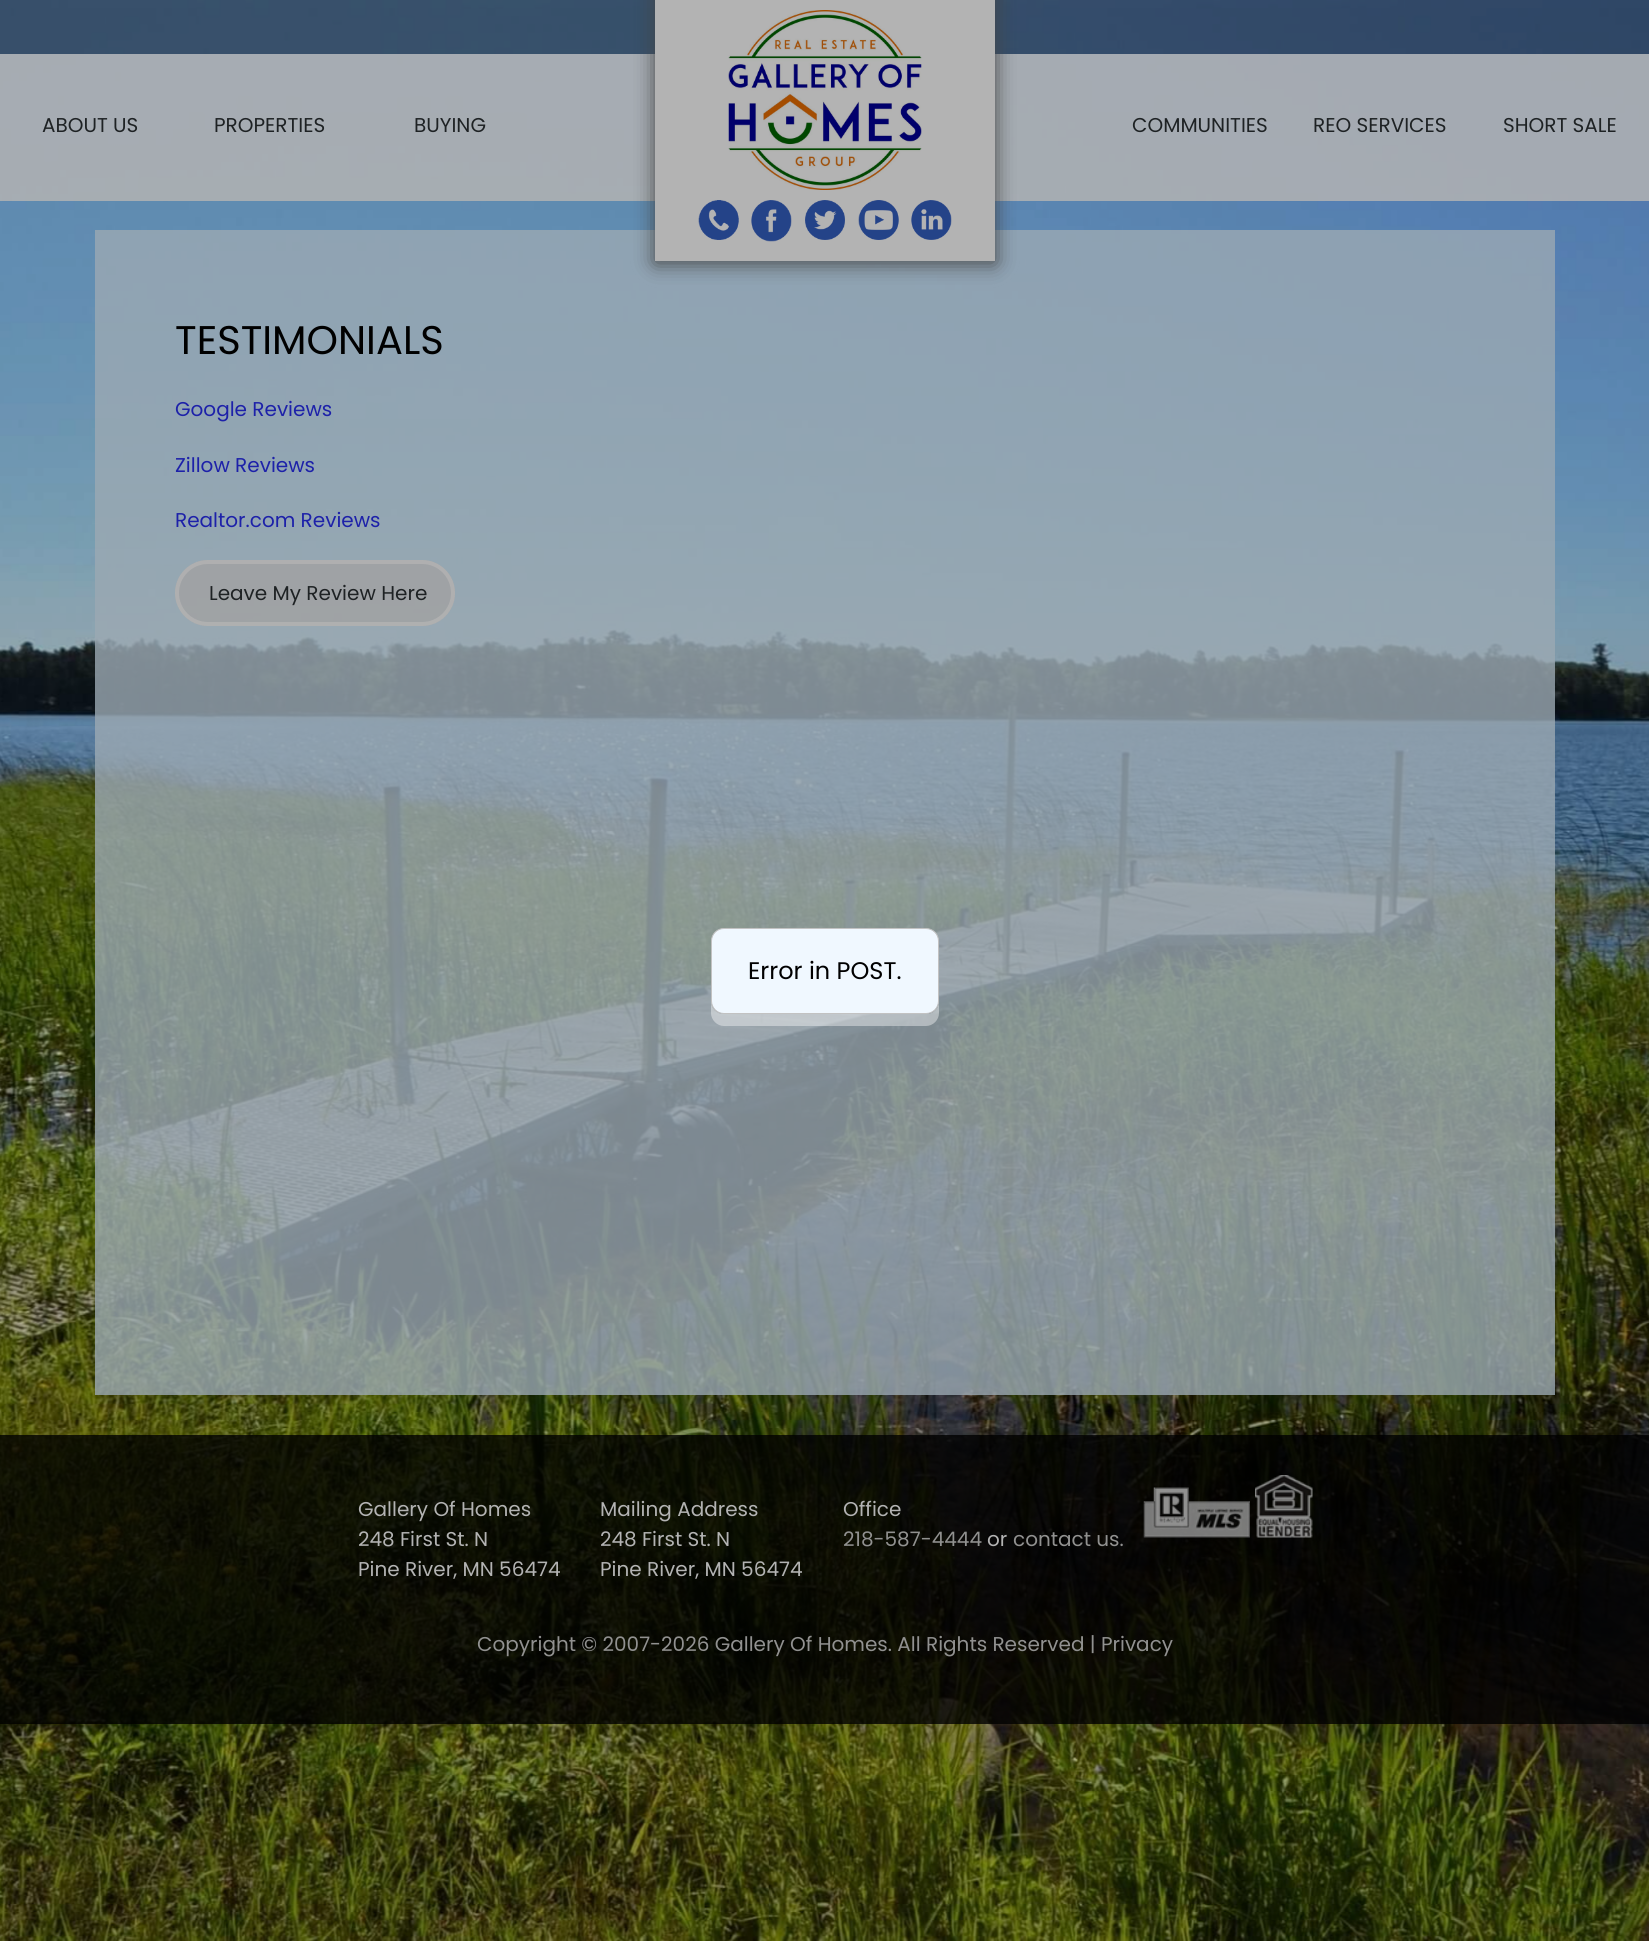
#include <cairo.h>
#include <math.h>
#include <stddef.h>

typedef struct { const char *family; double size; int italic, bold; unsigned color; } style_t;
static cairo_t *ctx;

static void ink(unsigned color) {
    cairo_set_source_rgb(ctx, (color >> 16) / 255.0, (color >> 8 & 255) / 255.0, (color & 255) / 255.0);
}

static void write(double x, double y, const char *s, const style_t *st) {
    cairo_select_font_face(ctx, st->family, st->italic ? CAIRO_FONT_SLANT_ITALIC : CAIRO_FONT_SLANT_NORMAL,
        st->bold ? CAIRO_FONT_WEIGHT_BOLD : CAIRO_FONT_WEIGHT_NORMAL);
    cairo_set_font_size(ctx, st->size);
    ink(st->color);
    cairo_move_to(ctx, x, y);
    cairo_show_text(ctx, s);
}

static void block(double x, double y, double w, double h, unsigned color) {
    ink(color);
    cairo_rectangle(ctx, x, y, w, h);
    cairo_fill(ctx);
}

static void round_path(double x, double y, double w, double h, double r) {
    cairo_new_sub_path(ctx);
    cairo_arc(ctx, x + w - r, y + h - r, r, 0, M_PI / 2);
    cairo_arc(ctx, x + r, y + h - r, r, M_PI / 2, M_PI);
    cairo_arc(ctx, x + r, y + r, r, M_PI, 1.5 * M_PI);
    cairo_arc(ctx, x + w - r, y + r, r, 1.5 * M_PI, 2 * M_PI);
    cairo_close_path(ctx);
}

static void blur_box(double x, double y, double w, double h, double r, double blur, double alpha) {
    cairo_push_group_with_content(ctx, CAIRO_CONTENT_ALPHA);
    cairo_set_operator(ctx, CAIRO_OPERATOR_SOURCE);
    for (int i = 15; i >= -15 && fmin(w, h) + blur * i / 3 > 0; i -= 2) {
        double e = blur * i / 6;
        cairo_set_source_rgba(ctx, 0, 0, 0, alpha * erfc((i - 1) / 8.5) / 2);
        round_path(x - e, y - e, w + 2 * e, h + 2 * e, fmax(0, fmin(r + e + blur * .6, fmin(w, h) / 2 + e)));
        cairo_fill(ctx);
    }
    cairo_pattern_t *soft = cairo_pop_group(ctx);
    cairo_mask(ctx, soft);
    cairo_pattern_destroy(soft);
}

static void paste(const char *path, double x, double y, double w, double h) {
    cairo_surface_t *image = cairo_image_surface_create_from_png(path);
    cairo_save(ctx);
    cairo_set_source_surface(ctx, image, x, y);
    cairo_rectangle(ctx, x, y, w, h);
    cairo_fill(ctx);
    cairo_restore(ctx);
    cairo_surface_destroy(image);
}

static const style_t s1 = {"Poppins", 20, 0, 0, 0x1e2224};
static const style_t s2 = {"Poppins", 40, 0, 0, 0x000000};
static const style_t s3 = {"Poppins", 20, 0, 0, 0x1d21a9};
static const style_t s4 = {"Poppins", 24, 0, 0, 0x000000};
static const style_t s5 = {"Poppins", 20, 0, 0, 0xb3b3b3};
static const style_t s6 = {"Poppins", 20, 0, 0, 0x919190};

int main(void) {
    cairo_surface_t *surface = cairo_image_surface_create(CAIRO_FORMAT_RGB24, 1649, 1941);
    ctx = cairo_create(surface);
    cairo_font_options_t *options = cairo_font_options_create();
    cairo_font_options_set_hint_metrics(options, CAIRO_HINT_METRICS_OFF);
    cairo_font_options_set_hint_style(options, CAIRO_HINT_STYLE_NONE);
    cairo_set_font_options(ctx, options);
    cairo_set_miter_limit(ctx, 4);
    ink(0xffffff);
    cairo_paint(ctx);
    paste("pic1.png", 0, 0, 1649, 1941);
    cairo_set_source_rgba(ctx, 0, 0, 0, 0.4);
    cairo_rectangle(ctx, 0, 0, 1649, 54);
    cairo_fill(ctx);
    cairo_set_source_rgba(ctx, 0.702, 0.702, 0.702, 0.85);
    cairo_rectangle(ctx, 0, 54, 1649, 147);
    cairo_fill(ctx);
    cairo_set_source_rgba(ctx, 0.608, 0.663, 0.702, 0.8);
    cairo_rectangle(ctx, 95, 230, 1460, 1165);
    cairo_fill(ctx);
    ink(0x444444);
    blur_box(655, -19, 340, 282, 0, 10, 1);
    block(655, 0, 340, 261, 0xb3b3b3);
    paste("pic2.png", 728, 10, 194, 180);
    paste("pic3.png", 698, 200, 41, 40);
    paste("pic4.png", 751, 200, 41, 42);
    paste("pic5.png", 805, 200, 40, 40);
    paste("pic6.png", 858, 200, 41, 40);
    paste("pic7.png", 911, 200, 41, 40);
    write(42, 132, "ABOUT US", &s1);
    write(214, 132, "PROPERTIES", &s1);
    write(414, 132, "BUYING", &s1);
    write(1132, 132, "COMMUNITIES", &s1);
    write(1313, 132, "REO SERVICES", &s1);
    write(1503, 132, "SHORT SALE", &s1);
    write(175, 354, "TESTIMONIALS", &s2);
    write(175, 416, "Google Reviews", &s3);
    write(175, 472, "Zillow Reviews", &s3);
    write(175, 527, "Realtor.com Reviews", &s3);
    cairo_set_source_rgba(ctx, 0.631, 0.631, 0.631, 0.8);
    round_path(175, 560, 280, 66, 33);
    cairo_fill(ctx);
    round_path(177, 562, 276, 62, 31);
    cairo_set_source_rgba(ctx, 0.702, 0.702, 0.702, 0.8);
    cairo_set_line_width(ctx, 4);
    cairo_stroke(ctx);
    write(209, 600, "Leave My Review Here", &s1);
    cairo_set_source_rgba(ctx, 1, 1, 1, 0.4);
    cairo_new_path(ctx);
    cairo_move_to(ctx, 711, 950);
    cairo_line_to(ctx, 711, 1013);
    cairo_curve_to(ctx, 711, 1020, 717, 1026, 724, 1026);
    cairo_line_to(ctx, 926, 1026);
    cairo_curve_to(ctx, 933, 1026, 939, 1020, 939, 1013);
    cairo_line_to(ctx, 939, 950);
    cairo_line_to(ctx, 939, 1002);
    cairo_curve_to(ctx, 939, 1008, 933, 1014, 927, 1014);
    cairo_line_to(ctx, 723, 1014);
    cairo_curve_to(ctx, 717, 1014, 711, 1008, 711, 1002);
    cairo_close_path(ctx);
    cairo_fill(ctx);
    ink(0xf0f8ff);
    round_path(711.5, 928.5, 227, 85, 12.5);
    cairo_fill_preserve(ctx);
    ink(0xc2c2c2);
    cairo_set_line_width(ctx, 1);
    cairo_stroke(ctx);
    write(748, 979, "Error in POST.", &s4);
    cairo_set_source_rgba(ctx, 0, 0, 0, 0.8);
    cairo_rectangle(ctx, 0, 1435, 1649, 289);
    cairo_fill(ctx);
    write(358, 1516, "Gallery Of Homes", &s5);
    write(358, 1546, "248 First St. N", &s5);
    write(358, 1576, "Pine River, MN 56474", &s5);
    write(600, 1516, "Mailing Address", &s5);
    write(600, 1546, "248 First St. N", &s5);
    write(600, 1576, "Pine River, MN 56474", &s5);
    write(843, 1516, "Office", &s5);
    write(843, 1546, "218-587-4444", &s6);
    write(987, 1546, "or", &s5);
    write(1013, 1546, "contact us.", &s6);
    paste("pic8.png", 1143, 1487, 107, 51);
    paste("pic9.png", 1255, 1475, 58, 63);
    write(477, 1651, "Copyright © 2007-2026 Gallery Of Homes. All Rights Reserved | Privacy", &s6);
    cairo_surface_write_to_png(surface, "screenshot.png");
    cairo_font_options_destroy(options);
    cairo_destroy(ctx);
    cairo_surface_destroy(surface);
    return 0;
}
